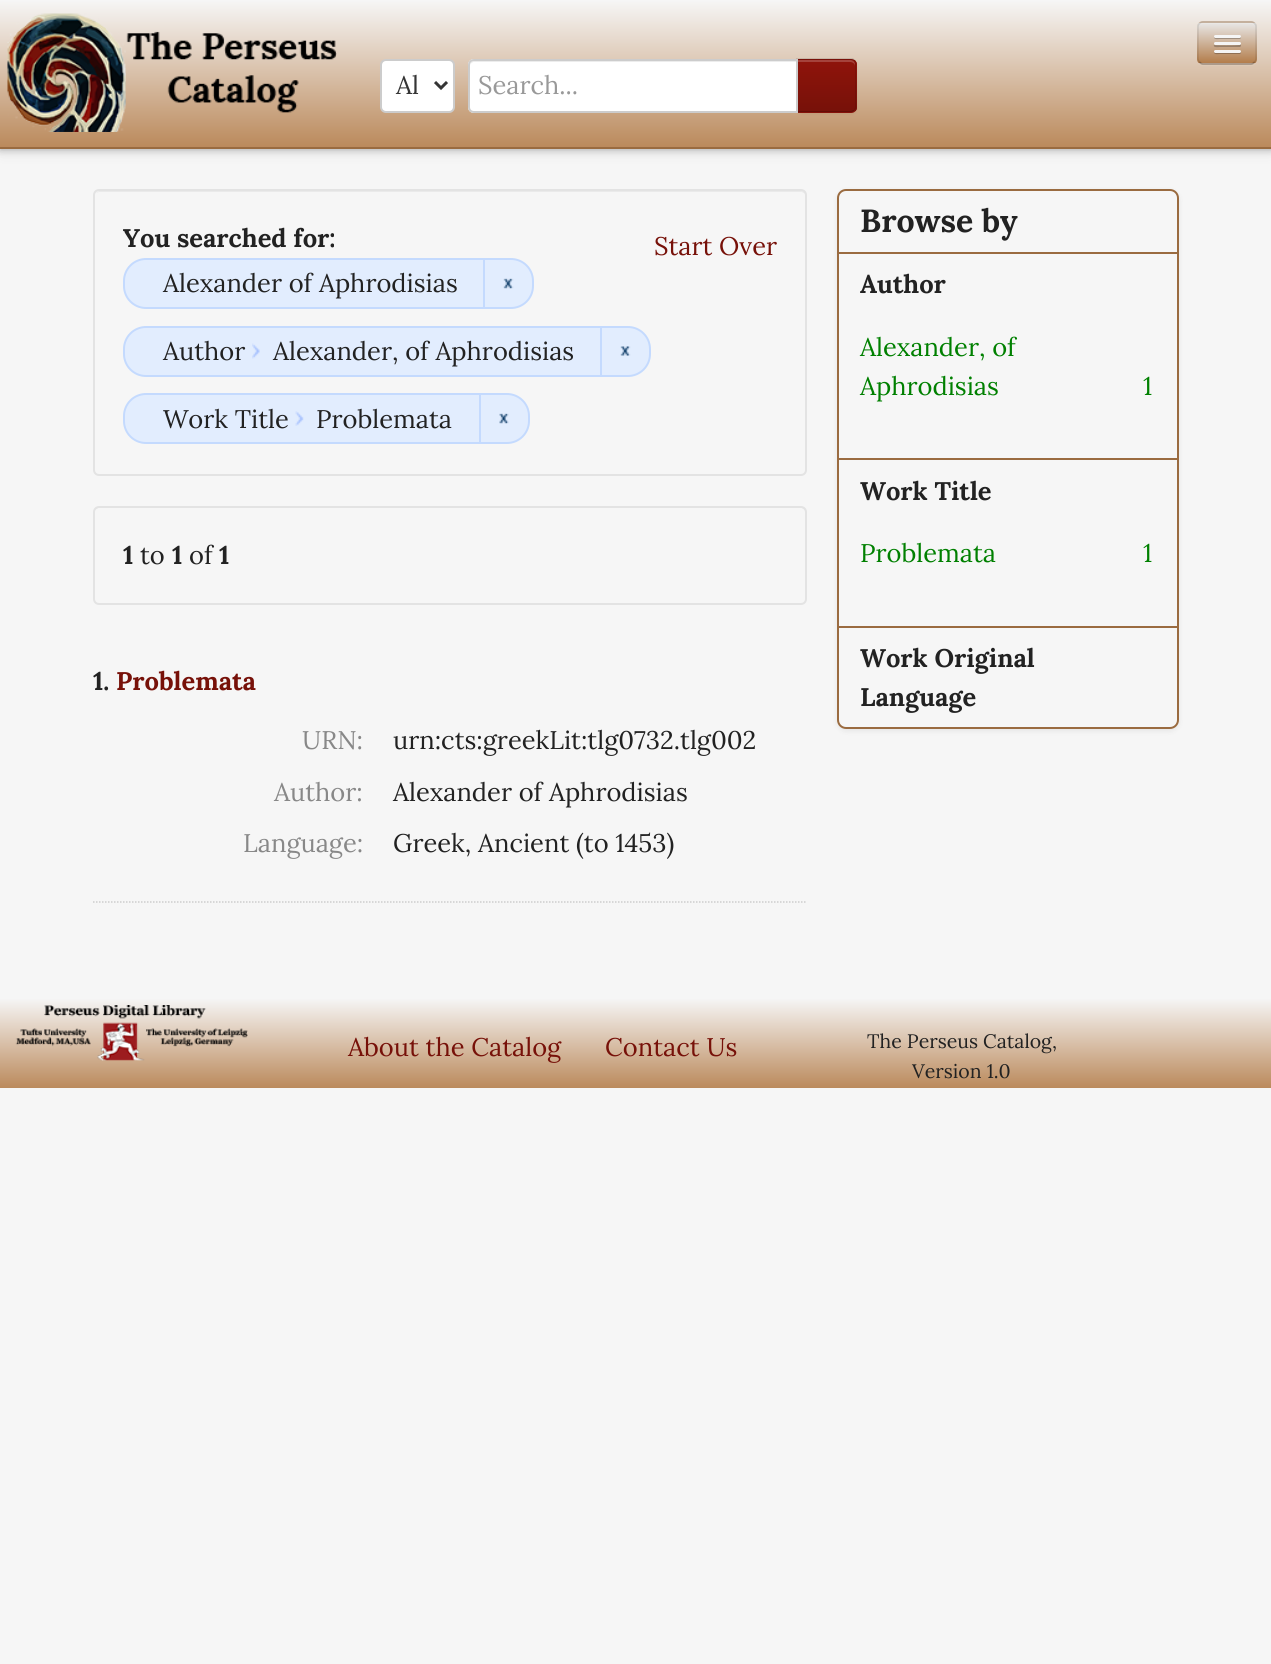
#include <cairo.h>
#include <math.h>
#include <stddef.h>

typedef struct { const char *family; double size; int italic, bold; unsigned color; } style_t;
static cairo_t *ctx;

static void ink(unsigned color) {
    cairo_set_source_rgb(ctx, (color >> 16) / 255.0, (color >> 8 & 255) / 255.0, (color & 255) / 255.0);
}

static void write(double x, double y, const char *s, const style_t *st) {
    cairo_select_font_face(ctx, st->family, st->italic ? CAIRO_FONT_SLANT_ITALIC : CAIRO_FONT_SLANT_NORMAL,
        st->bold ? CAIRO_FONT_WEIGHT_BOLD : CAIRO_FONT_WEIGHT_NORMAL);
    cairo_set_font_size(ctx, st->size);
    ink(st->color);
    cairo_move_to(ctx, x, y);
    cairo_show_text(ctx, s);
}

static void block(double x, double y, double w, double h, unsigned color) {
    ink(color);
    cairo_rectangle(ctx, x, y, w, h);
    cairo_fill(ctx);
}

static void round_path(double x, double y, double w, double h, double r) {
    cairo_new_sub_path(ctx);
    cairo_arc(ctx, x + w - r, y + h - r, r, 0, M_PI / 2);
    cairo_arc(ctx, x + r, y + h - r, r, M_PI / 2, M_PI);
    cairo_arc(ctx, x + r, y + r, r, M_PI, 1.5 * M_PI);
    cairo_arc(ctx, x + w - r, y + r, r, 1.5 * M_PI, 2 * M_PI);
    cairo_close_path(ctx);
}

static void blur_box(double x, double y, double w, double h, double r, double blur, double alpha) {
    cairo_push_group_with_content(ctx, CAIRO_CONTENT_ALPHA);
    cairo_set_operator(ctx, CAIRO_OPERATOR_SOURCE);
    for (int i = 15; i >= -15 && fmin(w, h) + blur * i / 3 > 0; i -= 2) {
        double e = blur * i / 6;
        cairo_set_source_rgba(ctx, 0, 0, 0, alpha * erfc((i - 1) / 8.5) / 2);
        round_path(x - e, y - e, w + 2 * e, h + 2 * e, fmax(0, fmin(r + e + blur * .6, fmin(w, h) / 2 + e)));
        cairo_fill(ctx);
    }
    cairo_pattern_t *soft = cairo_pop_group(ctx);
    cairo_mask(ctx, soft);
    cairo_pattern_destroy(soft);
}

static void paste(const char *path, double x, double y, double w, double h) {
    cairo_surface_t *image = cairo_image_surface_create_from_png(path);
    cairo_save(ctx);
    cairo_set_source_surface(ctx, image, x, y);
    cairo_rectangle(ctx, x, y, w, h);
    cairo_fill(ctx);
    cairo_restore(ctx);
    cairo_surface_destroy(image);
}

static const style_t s1 = {"Lora", 25.5, 0, 0, 0x353535};
static const style_t s2 = {"Lora", 25.5, 0, 0, 0x999999};
static const style_t s3 = {"Lora", 25.5, 0, 1, 0x222222};
static const style_t s4 = {"Lora", 25.5, 0, 0, 0x771109};
static const style_t s5 = {"Lora", 25.5, 0, 0, 0x222222};
static const style_t s6 = {"Lora", 25.5, 0, 1, 0x771109};
static const style_t s7 = {"Lora", 25.5, 0, 0, 0x888888};
static const style_t s8 = {"Lora", 32, 0, 1, 0x222222};
static const style_t s9 = {"Lora", 25.5, 0, 0, 0x008000};
static const style_t s10 = {"Lora", 19.5, 0, 0, 0x222222};

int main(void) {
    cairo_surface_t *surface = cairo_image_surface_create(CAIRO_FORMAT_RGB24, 1271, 1664);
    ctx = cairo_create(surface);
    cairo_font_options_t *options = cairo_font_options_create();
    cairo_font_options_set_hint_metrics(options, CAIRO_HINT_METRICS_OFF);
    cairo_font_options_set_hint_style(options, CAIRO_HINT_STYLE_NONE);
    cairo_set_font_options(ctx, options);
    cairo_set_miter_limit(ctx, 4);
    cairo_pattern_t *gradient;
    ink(0xf6f6f6);
    cairo_paint(ctx);
    ink(0x000000);
    blur_box(0, 0, 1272, 149, 0, 4, 0.3);
    blur_box(0, 2, 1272, 148, 0, 7.5, 0.1);
    gradient = cairo_pattern_create_linear(636, 0, 636, 147);
    cairo_pattern_add_color_stop_rgba(gradient, 0, 0.965, 0.965, 0.965, 1);
    cairo_pattern_add_color_stop_rgba(gradient, 1, 0.733, 0.541, 0.361, 1);
    cairo_set_source(ctx, gradient);
    cairo_pattern_destroy(gradient);
    cairo_rectangle(ctx, 0, 0, 1271, 147);
    cairo_fill(ctx);
    block(0, 147, 1271, 2, 0x9a6b40);
    paste("pic1.png", 7, 13, 330, 119);
    cairo_set_source_rgba(ctx, 1, 1, 1, 0.07);
    cairo_new_path(ctx);
    cairo_move_to(ctx, 1197, 58);
    cairo_curve_to(ctx, 1197, 68, 1204, 66, 1211, 66);
    cairo_line_to(ctx, 1243, 66);
    cairo_curve_to(ctx, 1250, 66, 1257, 68, 1257, 58);
    cairo_curve_to(ctx, 1257, 62, 1254, 64, 1251, 64);
    cairo_line_to(ctx, 1203, 64);
    cairo_curve_to(ctx, 1200, 64, 1197, 62, 1197, 58);
    cairo_close_path(ctx);
    cairo_fill(ctx);
    ink(0xd3bda9);
    round_path(1197, 21, 60, 44, 6);
    cairo_fill(ctx);
    cairo_save(ctx);
    round_path(1197, 21, 60, 44, 6);
    cairo_clip(ctx);
    gradient = cairo_pattern_create_linear(1227, 22, 1227, 63);
    cairo_pattern_add_color_stop_rgba(gradient, 0, 0.914, 0.914, 0.914, 1);
    cairo_pattern_add_color_stop_rgba(gradient, 1, 0.702, 0.49, 0.294, 1);
    cairo_set_source(ctx, gradient);
    cairo_pattern_destroy(gradient);
    cairo_rectangle(ctx, 1197, 23, 60, 40);
    cairo_fill(ctx);
    cairo_restore(ctx);
    cairo_set_source_rgba(ctx, 1, 1, 1, 0.1);
    cairo_new_path(ctx);
    cairo_move_to(ctx, 1203, 24);
    cairo_line_to(ctx, 1251, 24);
    cairo_curve_to(ctx, 1253, 24, 1256, 26, 1256, 28);
    cairo_curve_to(ctx, 1256, 25, 1254, 23, 1251, 23);
    cairo_line_to(ctx, 1204, 23);
    cairo_curve_to(ctx, 1202, 23, 1201, 24, 1200, 25);
    cairo_close_path(ctx);
    cairo_fill(ctx);
    cairo_new_path(ctx);
    cairo_move_to(ctx, 1254.5, 62);
    cairo_curve_to(ctx, 1253.5, 63, 1252.5, 64, 1251, 64);
    cairo_line_to(ctx, 1203, 64);
    cairo_curve_to(ctx, 1201.5, 64, 1200.5, 63, 1199.5, 62);
    cairo_set_source_rgba(ctx, 0, 0, 0, 0.25);
    cairo_set_line_width(ctx, 1.5);
    cairo_stroke(ctx);
    cairo_new_path(ctx);
    cairo_move_to(ctx, 1199.5, 62);
    cairo_curve_to(ctx, 1198.5, 61, 1198, 60, 1198, 58.5);
    cairo_line_to(ctx, 1198, 27);
    cairo_curve_to(ctx, 1198, 25.5, 1198.5, 24.5, 1199.5, 23.5);
    cairo_curve_to(ctx, 1200.5, 22.5, 1201.5, 22, 1203, 22);
    cairo_line_to(ctx, 1251, 22);
    cairo_curve_to(ctx, 1252.5, 22, 1253.5, 22.5, 1254.5, 23.5);
    cairo_curve_to(ctx, 1255.5, 24.5, 1256, 25.5, 1256, 27);
    cairo_line_to(ctx, 1256, 58.5);
    cairo_curve_to(ctx, 1256, 60, 1255.5, 61, 1254.5, 62);
    cairo_set_source_rgba(ctx, 0, 0, 0, 0.1);
    cairo_stroke(ctx);
    cairo_set_source_rgba(ctx, 0, 0, 0, 0.25);
    cairo_new_path(ctx);
    cairo_move_to(ctx, 1214, 37);
    cairo_curve_to(ctx, 1213.5, 40, 1219, 39, 1219.5, 39);
    cairo_line_to(ctx, 1239.5, 39);
    cairo_curve_to(ctx, 1241, 39, 1241.5, 37, 1240.5, 36.5);
    cairo_line_to(ctx, 1239.5, 37.5);
    cairo_curve_to(ctx, 1238, 38, 1214.5, 37.5, 1214, 37);
    cairo_close_path(ctx);
    cairo_fill(ctx);
    ink(0xf5f5f5);
    round_path(1214, 35, 27, 3, 1.5);
    cairo_fill(ctx);
    cairo_set_source_rgba(ctx, 0, 0, 0, 0.25);
    cairo_new_path(ctx);
    cairo_move_to(ctx, 1214, 45);
    cairo_curve_to(ctx, 1212.5, 48, 1219.5, 47, 1219.5, 47);
    cairo_line_to(ctx, 1240, 47);
    cairo_curve_to(ctx, 1241, 46.5, 1241.5, 45, 1240.5, 44);
    cairo_line_to(ctx, 1239, 45);
    cairo_curve_to(ctx, 1237, 45.5, 1215, 45.5, 1214, 45);
    cairo_close_path(ctx);
    cairo_fill(ctx);
    ink(0xf5f5f5);
    round_path(1214, 42, 27, 3, 1.5);
    cairo_fill(ctx);
    cairo_set_source_rgba(ctx, 0, 0, 0, 0.25);
    cairo_new_path(ctx);
    cairo_move_to(ctx, 1214, 52);
    cairo_curve_to(ctx, 1213.5, 55, 1219, 54, 1219.5, 54);
    cairo_line_to(ctx, 1239.5, 54);
    cairo_curve_to(ctx, 1241, 54, 1241.5, 52, 1240.5, 51.5);
    cairo_line_to(ctx, 1239.5, 52.5);
    cairo_curve_to(ctx, 1238, 53, 1214.5, 52.5, 1214, 52);
    cairo_close_path(ctx);
    cairo_fill(ctx);
    ink(0xf5f5f5);
    round_path(1214, 50, 27, 3, 1.5);
    cairo_fill(ctx);
    ink(0xffffff);
    round_path(381, 60, 73, 52, 5);
    cairo_fill_preserve(ctx);
    ink(0xcccccc);
    cairo_set_line_width(ctx, 2);
    cairo_stroke(ctx);
    cairo_new_path(ctx);
    cairo_move_to(ctx, 435, 82);
    cairo_line_to(ctx, 441, 88);
    cairo_line_to(ctx, 447, 82);
    ink(0x353535);
    cairo_set_line_width(ctx, 3);
    cairo_stroke(ctx);
    write(396, 94, "Al", &s1);
    ink(0x000000);
    blur_box(797, 60, 60, 54, 6, 1.5, 0.05);
    ink(0x85120a);
    cairo_new_path(ctx);
    cairo_move_to(ctx, 797, 59);
    cairo_line_to(ctx, 851, 59);
    cairo_curve_to(ctx, 854.5, 59, 857, 61.5, 857, 65);
    cairo_line_to(ctx, 857, 107);
    cairo_curve_to(ctx, 857, 110.5, 854.5, 113, 851, 113);
    cairo_line_to(ctx, 797, 113);
    cairo_close_path(ctx);
    cairo_fill(ctx);
    cairo_save(ctx);
    cairo_new_path(ctx);
    cairo_move_to(ctx, 797, 59);
    cairo_line_to(ctx, 851, 59);
    cairo_curve_to(ctx, 854.5, 59, 857, 61.5, 857, 65);
    cairo_line_to(ctx, 857, 107);
    cairo_curve_to(ctx, 857, 110.5, 854.5, 113, 851, 113);
    cairo_line_to(ctx, 797, 113);
    cairo_close_path(ctx);
    cairo_clip(ctx);
    gradient = cairo_pattern_create_linear(827, 60, 827, 111);
    cairo_pattern_add_color_stop_rgba(gradient, 0, 0.561, 0.078, 0.043, 1);
    cairo_pattern_add_color_stop_rgba(gradient, 1, 0.467, 0.067, 0.035, 1);
    cairo_set_source(ctx, gradient);
    cairo_pattern_destroy(gradient);
    cairo_rectangle(ctx, 798, 60, 59, 51);
    cairo_fill(ctx);
    cairo_restore(ctx);
    ink(0xa5433c);
    cairo_new_path(ctx);
    cairo_move_to(ctx, 798, 62);
    cairo_line_to(ctx, 850, 62);
    cairo_curve_to(ctx, 853, 62, 855, 64, 855, 66);
    cairo_line_to(ctx, 855, 65);
    cairo_curve_to(ctx, 855, 62, 853, 60, 850, 60);
    cairo_line_to(ctx, 798, 60);
    cairo_close_path(ctx);
    cairo_fill(ctx);
    cairo_set_source_rgba(ctx, 0, 0, 0, 0.1);
    cairo_new_path(ctx);
    cairo_move_to(ctx, 798, 60);
    cairo_line_to(ctx, 796, 58);
    cairo_line_to(ctx, 853, 58);
    cairo_line_to(ctx, 855, 60);
    cairo_line_to(ctx, 854, 61);
    cairo_curve_to(ctx, 853, 61, 852, 60, 850, 60);
    cairo_close_path(ctx);
    cairo_fill(ctx);
    cairo_set_source_rgba(ctx, 0, 0, 0, 0.25);
    cairo_new_path(ctx);
    cairo_move_to(ctx, 854, 110);
    cairo_curve_to(ctx, 854, 112, 852, 112, 850, 112);
    cairo_line_to(ctx, 797, 112);
    cairo_line_to(ctx, 798, 111);
    cairo_line_to(ctx, 850, 111);
    cairo_curve_to(ctx, 852, 111, 853, 110, 854, 110);
    cairo_close_path(ctx);
    cairo_fill(ctx);
    cairo_set_source_rgba(ctx, 0, 0, 0, 0.1);
    cairo_new_path(ctx);
    cairo_move_to(ctx, 798, 60);
    cairo_line_to(ctx, 798, 111);
    cairo_line_to(ctx, 796, 112);
    cairo_line_to(ctx, 796, 58);
    cairo_close_path(ctx);
    cairo_fill(ctx);
    ink(0xffffff);
    cairo_new_path(ctx);
    cairo_move_to(ctx, 474, 59);
    cairo_line_to(ctx, 798, 59);
    cairo_line_to(ctx, 798, 113);
    cairo_line_to(ctx, 474, 113);
    cairo_curve_to(ctx, 470.5, 113, 468, 110.5, 468, 107);
    cairo_line_to(ctx, 468, 65);
    cairo_curve_to(ctx, 468, 61.5, 470.5, 59, 474, 59);
    cairo_close_path(ctx);
    cairo_fill(ctx);
    ink(0xececec);
    cairo_new_path(ctx);
    cairo_move_to(ctx, 474, 62);
    cairo_line_to(ctx, 796, 62);
    cairo_line_to(ctx, 796, 111);
    cairo_line_to(ctx, 797, 111);
    cairo_line_to(ctx, 797, 60);
    cairo_line_to(ctx, 475, 60);
    cairo_curve_to(ctx, 472, 60, 470, 63, 470, 66);
    cairo_curve_to(ctx, 470, 64, 472, 62, 474, 62);
    cairo_close_path(ctx);
    cairo_fill(ctx);
    cairo_new_path(ctx);
    cairo_move_to(ctx, 474, 60);
    cairo_line_to(ctx, 797, 60);
    cairo_line_to(ctx, 797, 112);
    cairo_line_to(ctx, 474, 112);
    cairo_curve_to(ctx, 471, 112, 469, 110, 469, 107);
    cairo_line_to(ctx, 469, 65);
    cairo_curve_to(ctx, 469, 62, 471, 60, 474, 60);
    cairo_close_path(ctx);
    ink(0xcccccc);
    cairo_set_line_width(ctx, 2);
    cairo_stroke(ctx);
    write(478, 94, "Search...", &s2);
    cairo_set_source_rgba(ctx, 0, 0, 0, 0.1);
    cairo_new_path(ctx);
    cairo_move_to(ctx, 855, 60);
    cairo_curve_to(ctx, 856, 61, 856, 63, 856, 64);
    cairo_line_to(ctx, 856, 106);
    cairo_curve_to(ctx, 856, 108, 856, 110, 854, 110);
    cairo_curve_to(ctx, 854, 109, 855, 108, 855, 106);
    cairo_line_to(ctx, 855, 64);
    cairo_curve_to(ctx, 855, 63, 855, 62, 854, 61);
    cairo_close_path(ctx);
    cairo_fill(ctx);
    ink(0xeaeaea);
    cairo_new_path(ctx);
    cairo_move_to(ctx, 99, 192);
    cairo_line_to(ctx, 801, 192);
    cairo_curve_to(ctx, 803, 192, 806, 194, 806, 196);
    cairo_curve_to(ctx, 806, 193, 804, 191, 801, 191);
    cairo_line_to(ctx, 100, 191);
    cairo_curve_to(ctx, 98, 191, 97, 192, 96, 193);
    cairo_close_path(ctx);
    cairo_fill(ctx);
    round_path(94, 190, 712, 285, 5);
    ink(0xe3e3e3);
    cairo_stroke(ctx);
    write(123, 247, "You searched for:", &s3);
    write(654, 255, "Start Over", &s4);
    ink(0xe2edfe);
    round_path(124, 259, 409, 49, 22);
    cairo_fill_preserve(ctx);
    ink(0xc4dafe);
    cairo_stroke(ctx);
    write(163, 292, "Alexander of Aphrodisias", &s5);
    paste("pic2.png", 503, 278, 11, 11);
    block(483, 260, 2, 48, 0xc4dafe);
    ink(0xe2edfe);
    round_path(124, 327, 526, 49, 22);
    cairo_fill_preserve(ctx);
    ink(0xc4dafe);
    cairo_stroke(ctx);
    write(163, 360, "Author", &s5);
    paste("pic3.png", 252, 343, 8, 16);
    write(273, 360, "Alexander, of Aphrodisias", &s5);
    paste("pic4.png", 620, 346, 11, 10);
    block(600, 327, 2, 48, 0xc4dafe);
    ink(0xe2edfe);
    round_path(124, 394, 405, 49, 22);
    cairo_fill_preserve(ctx);
    ink(0xc4dafe);
    cairo_stroke(ctx);
    write(163, 428, "Work Title", &s5);
    paste("pic5.png", 295, 411, 9, 15);
    write(316, 428, "Problemata", &s5);
    paste("pic6.png", 499, 413, 10, 11);
    block(479, 395, 2, 48, 0xc4dafe);
    ink(0xeaeaea);
    cairo_new_path(ctx);
    cairo_move_to(ctx, 99, 508);
    cairo_line_to(ctx, 801, 508);
    cairo_curve_to(ctx, 803, 508, 806, 511, 806, 513);
    cairo_line_to(ctx, 806, 512);
    cairo_curve_to(ctx, 806, 509, 804, 507, 801, 507);
    cairo_line_to(ctx, 100, 507);
    cairo_curve_to(ctx, 98, 507, 96, 508, 95, 510);
    cairo_curve_to(ctx, 96, 509, 98, 508, 99, 508);
    cairo_close_path(ctx);
    cairo_fill(ctx);
    round_path(94, 507, 712, 97, 5);
    ink(0xe3e3e3);
    cairo_stroke(ctx);
    write(123, 564, "1", &s3);
    write(140, 564, "to", &s5);
    write(172, 564, "1", &s3);
    write(189, 564, "of", &s5);
    write(219, 564, "1", &s3);
    cairo_new_path(ctx);
    cairo_move_to(ctx, 93, 902);
    cairo_line_to(ctx, 807, 902);
    ink(0xcccccc);
    cairo_set_line_width(ctx, 1.5);
    cairo_set_dash(ctx, (double[]){1.5, 1.5}, 2, 0);
    cairo_stroke(ctx);
    write(93, 690, "1.", &s3);
    write(116, 690, "Problemata", &s6);
    write(302, 749, "URN:", &s7);
    write(393, 749, "urn:cts:greekLit:tlg0732.tlg002", &s5);
    write(274, 801, "Author:", &s7);
    write(393, 801, "Alexander of Aphrodisias", &s5);
    write(243, 852, "Language:", &s7);
    write(393, 852, "Greek, Ancient (to 1453)", &s5);
    cairo_save(ctx);
    cairo_set_fill_rule(ctx, CAIRO_FILL_RULE_EVEN_ODD);
    cairo_new_path(ctx);
    cairo_move_to(ctx, 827, 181);
    cairo_line_to(ctx, 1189, 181);
    cairo_line_to(ctx, 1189, 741);
    cairo_line_to(ctx, 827, 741);
    cairo_close_path(ctx);
    cairo_move_to(ctx, 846, 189);
    cairo_line_to(ctx, 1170, 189);
    cairo_curve_to(ctx, 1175, 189, 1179, 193, 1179, 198);
    cairo_line_to(ctx, 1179, 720);
    cairo_curve_to(ctx, 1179, 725, 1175, 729, 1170, 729);
    cairo_line_to(ctx, 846, 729);
    cairo_curve_to(ctx, 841, 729, 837, 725, 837, 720);
    cairo_line_to(ctx, 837, 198);
    cairo_curve_to(ctx, 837, 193, 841, 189, 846, 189);
    cairo_close_path(ctx);
    cairo_clip(ctx);
    ink(0x000000);
    blur_box(837, 191, 342, 540, 9, 3, 0.07);
    cairo_restore(ctx);
    round_path(838, 190, 340, 538, 8);
    ink(0x9a6b40);
    cairo_set_line_width(ctx, 2);
    cairo_set_dash(ctx, NULL, 0, 0);
    cairo_stroke(ctx);
    write(860, 232, "Browse by", &s8);
    block(839, 252, 339, 2, 0x9a6b40);
    write(860, 293, "Author", &s3);
    write(860, 356, "Alexander, of", &s9);
    write(860, 395, "Aphrodisias", &s9);
    write(1143, 395, "1", &s9);
    block(839, 458, 339, 2, 0x9a6b40);
    write(860, 500, "Work Title", &s3);
    write(860, 562, "Problemata", &s9);
    write(1143, 562, "1", &s9);
    block(839, 626, 339, 2, 0x9a6b40);
    write(860, 667, "Work Original", &s3);
    write(860, 706, "Language", &s3);
    gradient = cairo_pattern_create_linear(636, 998, 636, 1088);
    cairo_pattern_add_color_stop_rgba(gradient, 0, 0.965, 0.965, 0.965, 1);
    cairo_pattern_add_color_stop_rgba(gradient, 1, 0.733, 0.541, 0.361, 1);
    cairo_set_source(ctx, gradient);
    cairo_pattern_destroy(gradient);
    cairo_rectangle(ctx, 0, 999, 1271, 89);
    cairo_fill(ctx);
    paste("pic7.png", 15, 1005, 233, 56);
    write(348, 1056, "About the Catalog", &s4);
    write(605, 1056, "Contact Us", &s4);
    write(867, 1048, "The Perseus Catalog,", &s10);
    write(912, 1078, "Version 1.0", &s10);
    cairo_surface_write_to_png(surface, "screenshot.png");
    cairo_font_options_destroy(options);
    cairo_destroy(ctx);
    cairo_surface_destroy(surface);
    return 0;
}
